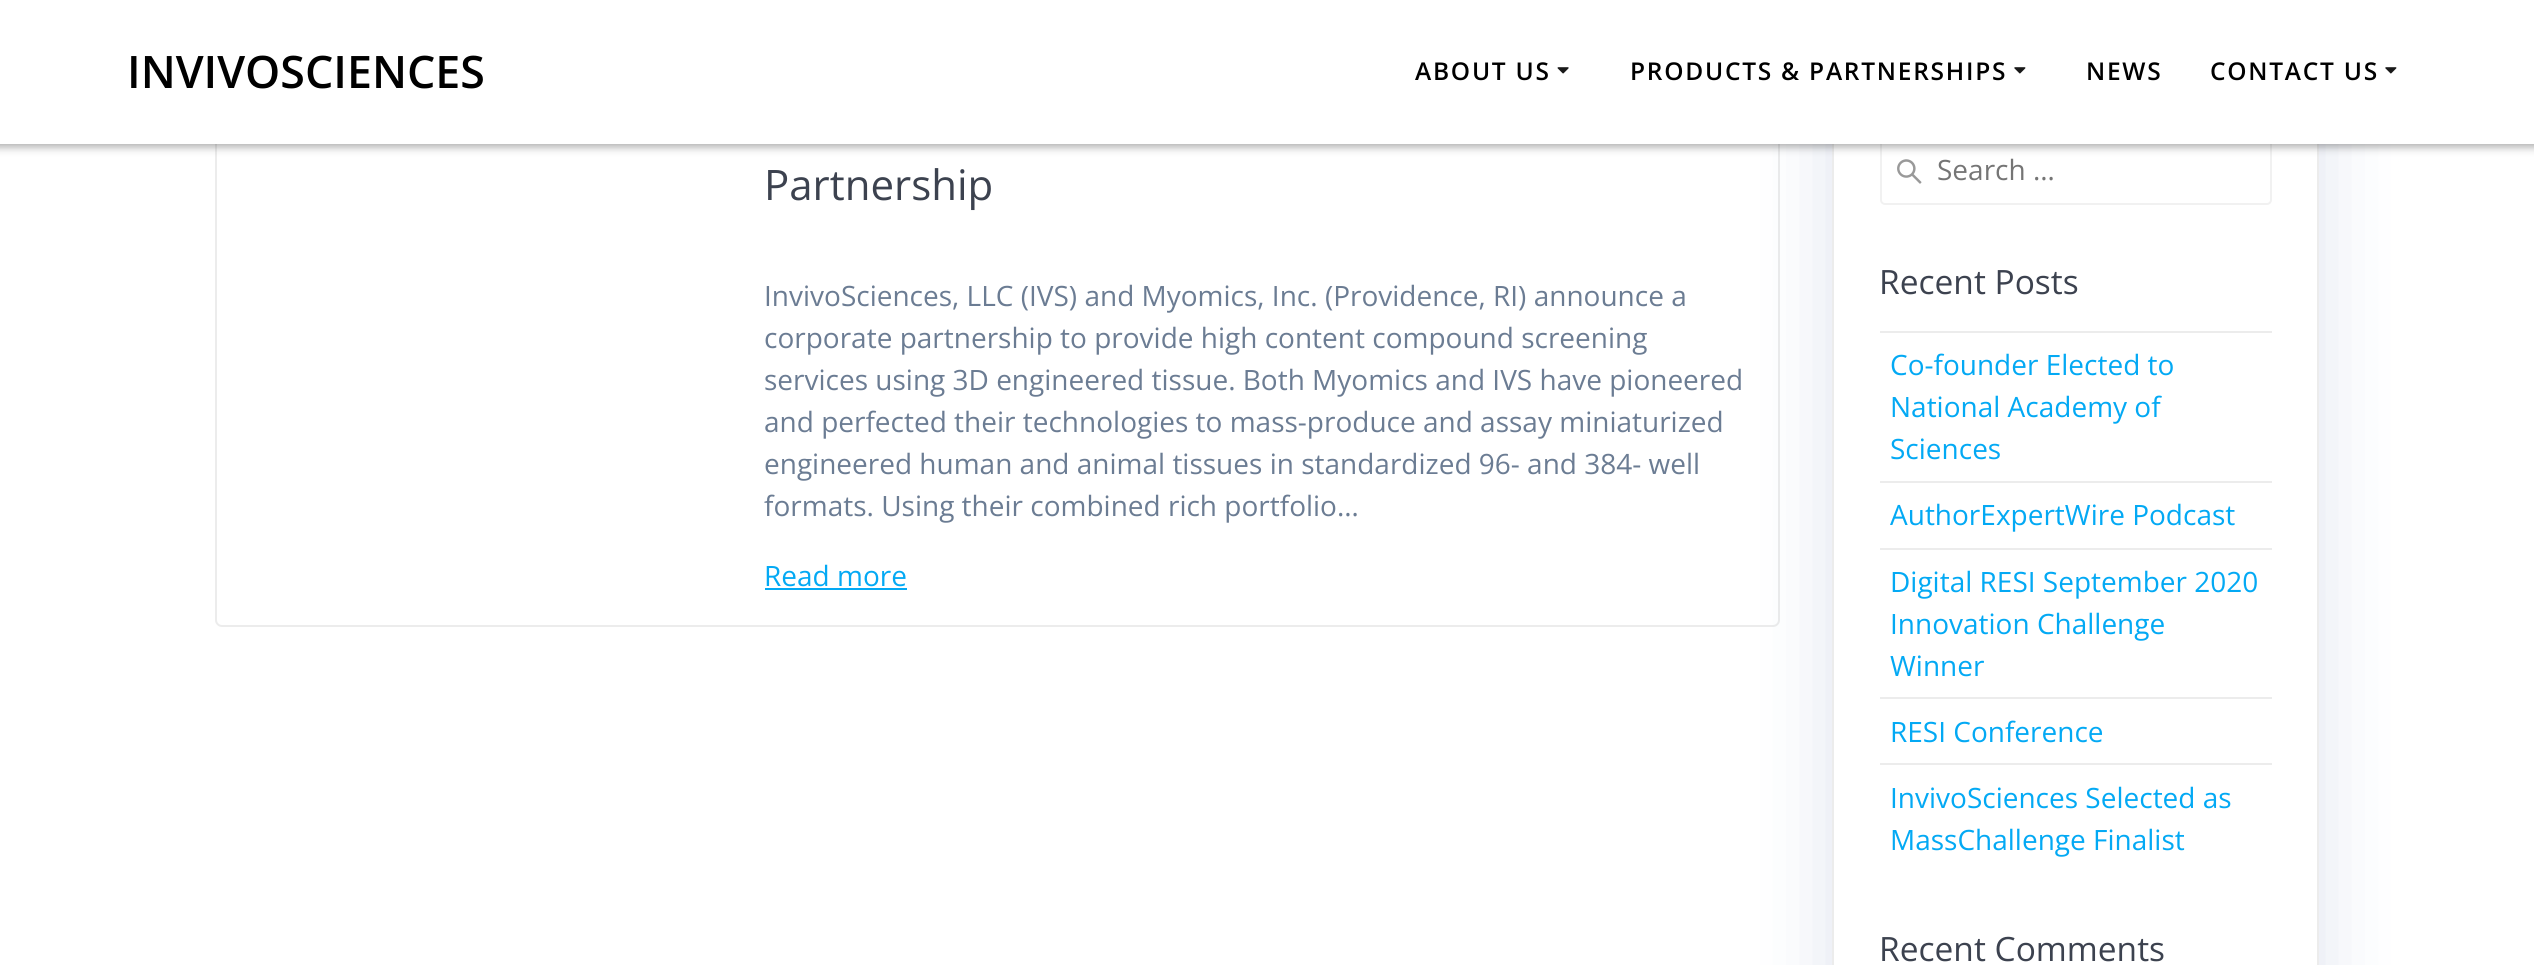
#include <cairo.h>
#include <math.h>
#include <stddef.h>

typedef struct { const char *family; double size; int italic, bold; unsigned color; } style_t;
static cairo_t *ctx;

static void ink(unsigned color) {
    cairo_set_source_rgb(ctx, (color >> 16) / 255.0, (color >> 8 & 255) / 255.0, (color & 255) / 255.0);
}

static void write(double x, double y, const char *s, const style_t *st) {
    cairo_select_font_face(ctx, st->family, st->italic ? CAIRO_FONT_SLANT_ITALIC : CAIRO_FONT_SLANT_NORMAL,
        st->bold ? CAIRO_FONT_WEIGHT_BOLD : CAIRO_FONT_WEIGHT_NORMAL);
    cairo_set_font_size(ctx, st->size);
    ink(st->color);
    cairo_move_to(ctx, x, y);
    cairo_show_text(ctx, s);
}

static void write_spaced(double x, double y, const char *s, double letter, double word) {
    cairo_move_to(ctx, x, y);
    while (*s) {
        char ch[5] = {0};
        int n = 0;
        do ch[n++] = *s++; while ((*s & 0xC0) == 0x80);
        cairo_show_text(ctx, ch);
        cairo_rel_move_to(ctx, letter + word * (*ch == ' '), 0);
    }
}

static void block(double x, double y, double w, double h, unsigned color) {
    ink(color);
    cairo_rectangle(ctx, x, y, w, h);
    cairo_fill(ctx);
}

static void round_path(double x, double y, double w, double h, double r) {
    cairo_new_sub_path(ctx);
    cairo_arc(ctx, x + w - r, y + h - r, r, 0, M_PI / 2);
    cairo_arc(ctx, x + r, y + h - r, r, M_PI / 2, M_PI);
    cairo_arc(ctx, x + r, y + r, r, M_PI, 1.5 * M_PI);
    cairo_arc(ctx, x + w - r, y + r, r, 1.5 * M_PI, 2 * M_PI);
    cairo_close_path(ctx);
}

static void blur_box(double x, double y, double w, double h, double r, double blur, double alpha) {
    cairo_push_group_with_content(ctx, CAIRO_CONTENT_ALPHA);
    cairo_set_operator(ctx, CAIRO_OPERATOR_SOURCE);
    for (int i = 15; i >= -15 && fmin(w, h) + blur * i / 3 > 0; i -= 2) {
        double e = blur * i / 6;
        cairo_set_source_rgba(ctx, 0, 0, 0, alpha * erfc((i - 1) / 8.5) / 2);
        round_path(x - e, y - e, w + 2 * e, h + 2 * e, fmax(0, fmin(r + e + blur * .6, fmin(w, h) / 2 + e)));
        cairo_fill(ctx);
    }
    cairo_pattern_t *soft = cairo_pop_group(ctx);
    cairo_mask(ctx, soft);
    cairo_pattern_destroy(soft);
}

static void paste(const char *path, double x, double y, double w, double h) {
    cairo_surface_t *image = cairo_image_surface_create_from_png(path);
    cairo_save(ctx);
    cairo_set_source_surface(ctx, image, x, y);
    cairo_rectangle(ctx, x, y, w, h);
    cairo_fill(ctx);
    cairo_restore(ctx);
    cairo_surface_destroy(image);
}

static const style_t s1 = {"Open Sans SemiBold", 44.75, 0, 0, 0x000000};
static const style_t s2 = {"Open Sans", 42, 0, 0, 0x3c424f};
static const style_t s3 = {"Open Sans", 28, 0, 0, 0x6b7c93};
static const style_t s4 = {"Open Sans", 28, 0, 0, 0x03a9f4};
static const style_t s5 = {"Open Sans", 28, 0, 0, 0x757575};
static const style_t s6 = {"Open Sans", 33.5, 0, 0, 0x3c424f};

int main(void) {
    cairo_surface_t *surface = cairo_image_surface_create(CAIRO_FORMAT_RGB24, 2534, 965);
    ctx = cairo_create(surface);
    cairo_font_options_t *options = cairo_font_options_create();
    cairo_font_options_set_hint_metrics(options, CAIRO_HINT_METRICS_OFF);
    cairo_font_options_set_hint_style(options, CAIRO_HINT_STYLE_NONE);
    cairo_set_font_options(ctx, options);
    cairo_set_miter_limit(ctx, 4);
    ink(0xffffff);
    cairo_paint(ctx);
    round_path(216, 92, 1563, 534, 6);
    ink(0xececec);
    cairo_stroke(ctx);
    ink(0x234598);
    blur_box(1832, 107, 487, 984, 7, 39.5, 0.15);
    block(1834, 144, 483, 821, 0xffffff);
    cairo_rectangle(ctx, 1833, 92, 485, 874);
    ink(0xececec);
    cairo_stroke(ctx);
    paste("pic3.png", 1897, 159, 25, 25);
    round_path(1881, 136, 390, 68, 4);
    ink(0xf1f1f1);
    cairo_stroke(ctx);
    ink(0x000000);
    blur_box(-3, -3, 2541, 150, 0, 4.5, 0.33);
    block(0, 0, 2534, 144, 0xffffff);
    write(127, 88, "INVIVOSCIENCES", &s1);
    cairo_set_font_size(ctx, 24.5);
    write_spaced(1415, 80, "ABOUT US", 1.75, 0);
    paste("pic1.png", 1557, 67, 12, 7);
    write_spaced(1630, 80, "PRODUCTS & PARTNERSHIPS", 1.75, 0);
    paste("pic2.png", 2014, 67, 12, 7);
    write_spaced(2086, 80, "NEWS", 1.75, 0);
    write_spaced(2210, 80, "CONTACT US", 1.75, 0);
    paste("pic2.png", 2385, 67, 12, 7);
    write(764, 200, "Partnership", &s2);
    write(764, 306, "InvivoSciences, LLC (IVS) and Myomics, Inc. (Providence, RI) announce a", &s3);
    write(764, 348, "corporate partnership to provide high content compound screening", &s3);
    write(764, 390, "services using 3D engineered tissue. Both Myomics and IVS have pioneered", &s3);
    write(764, 432, "and perfected their technologies to mass-produce and assay miniaturized", &s3);
    write(764, 474, "engineered human and animal tissues in standardized 96- and 384- well", &s3);
    write(764, 516, "formats. Using their combined rich portfolio…", &s3);
    write(764, 586, "Read more", &s4);
    block(765, 588, 142, 2, 0x03a9f4);
    write(1937, 180, "Search …", &s5);
    write(1879, 294, "Recent Posts", &s6);
    block(1880, 331, 392, 2, 0xececec);
    write(1890, 375, "Co-founder Elected to", &s4);
    write(1890, 417, "National Academy of", &s4);
    write(1890, 459, "Sciences", &s4);
    block(1880, 481, 392, 2, 0xececec);
    write(1890, 525, "AuthorExpertWire Podcast", &s4);
    block(1880, 548, 392, 2, 0xececec);
    write(1890, 592, "Digital RESI September 2020", &s4);
    write(1890, 634, "Innovation Challenge", &s4);
    write(1890, 676, "Winner", &s4);
    block(1880, 697, 392, 2, 0xececec);
    write(1890, 742, "RESI Conference", &s4);
    block(1880, 763, 392, 2, 0xececec);
    write(1890, 808, "InvivoSciences Selected as", &s4);
    write(1890, 850, "MassChallenge Finalist", &s4);
    write(1879, 961, "Recent Comments", &s6);
    cairo_surface_write_to_png(surface, "screenshot.png");
    cairo_font_options_destroy(options);
    cairo_destroy(ctx);
    cairo_surface_destroy(surface);
    return 0;
}
